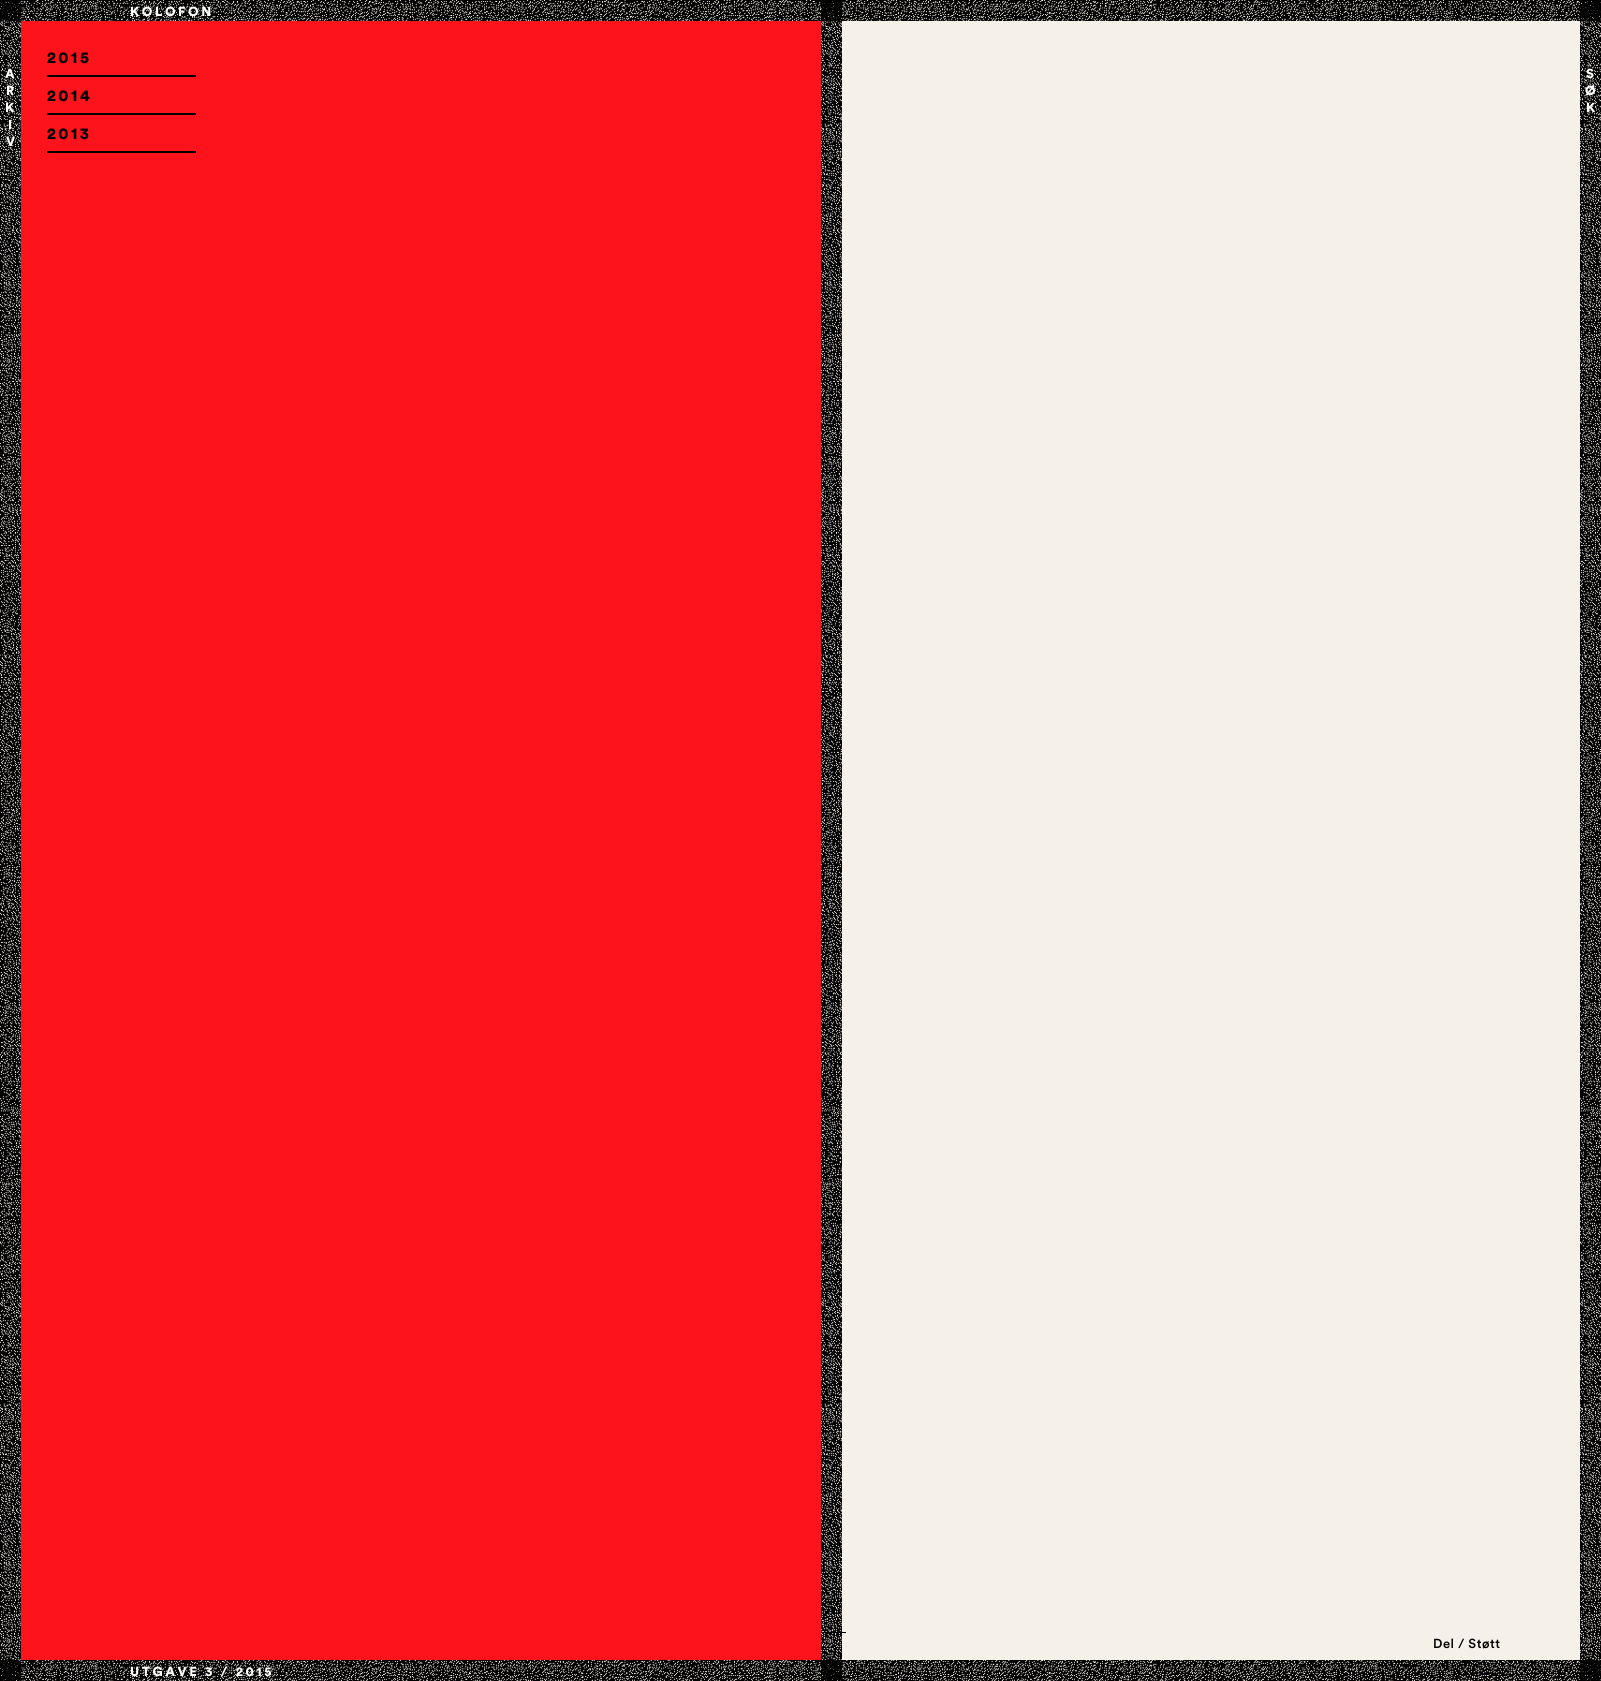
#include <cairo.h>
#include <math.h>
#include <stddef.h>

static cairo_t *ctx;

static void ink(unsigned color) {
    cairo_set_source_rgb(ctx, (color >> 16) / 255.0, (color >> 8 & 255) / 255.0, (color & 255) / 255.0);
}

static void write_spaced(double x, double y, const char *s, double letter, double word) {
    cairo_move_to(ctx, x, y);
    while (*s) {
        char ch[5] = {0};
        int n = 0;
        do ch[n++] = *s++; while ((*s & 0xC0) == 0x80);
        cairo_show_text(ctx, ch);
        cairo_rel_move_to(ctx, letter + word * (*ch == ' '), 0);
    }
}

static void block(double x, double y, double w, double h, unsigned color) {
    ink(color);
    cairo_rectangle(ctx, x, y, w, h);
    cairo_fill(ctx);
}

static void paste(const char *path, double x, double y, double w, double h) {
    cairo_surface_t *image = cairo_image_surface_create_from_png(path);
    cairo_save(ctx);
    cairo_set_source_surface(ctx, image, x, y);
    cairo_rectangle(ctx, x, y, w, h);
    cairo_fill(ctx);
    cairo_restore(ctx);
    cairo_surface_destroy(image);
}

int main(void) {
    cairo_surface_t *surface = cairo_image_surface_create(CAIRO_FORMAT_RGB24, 1601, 1681);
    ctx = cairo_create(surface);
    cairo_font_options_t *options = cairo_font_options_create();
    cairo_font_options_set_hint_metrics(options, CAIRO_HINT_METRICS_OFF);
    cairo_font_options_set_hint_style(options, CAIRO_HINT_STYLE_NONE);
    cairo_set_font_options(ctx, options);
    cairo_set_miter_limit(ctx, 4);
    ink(0xf5f1e9);
    cairo_paint(ctx);
    block(821, 1632, 25, 1, 0x000000);
    paste("pic5.png", 821, 0, 21, 1681);
    paste("pic1.png", 0, 0, 1601, 21);
    cairo_select_font_face(ctx, "Circular Black", CAIRO_FONT_SLANT_NORMAL, CAIRO_FONT_WEIGHT_NORMAL);
    cairo_set_font_size(ctx, 13);
    ink(0xffffff);
    write_spaced(130, 16, "KOLOFON", 2.6, 0);
    paste("pic3.png", 1580, 0, 21, 1681);
    paste("pic4.png", 0, 1660, 1601, 21);
    paste("pic2.png", 0, 0, 21, 1681);
    write_spaced(5, 78, "A", 0.5, 0);
    write_spaced(6, 95, "R", 0.5, 0);
    write_spaced(5, 112, "K", 0.5, 0);
    write_spaced(8, 129, "I", 0.5, 0);
    write_spaced(6, 146, "V", 0.5, 0);
    write_spaced(1586, 78, "S", 0.5, 0);
    write_spaced(1585, 95, "Ø", 0.5, 0);
    write_spaced(1586, 112, "K", 0.5, 0);
    write_spaced(130, 1676, "UTGAVE 3 / 2015", 2.6, 0);
    block(21, 21, 800, 1639, 0xfc131b);
    block(47, 75, 149, 2, 0x000000);
    cairo_set_font_size(ctx, 16);
    write_spaced(47, 63, "2015", 2.5, 0);
    block(47, 113, 149, 2, 0x000000);
    write_spaced(47, 101, "2014", 2.5, 0);
    block(47, 151, 149, 2, 0x000000);
    write_spaced(47, 139, "2013", 2.5, 0);
    cairo_select_font_face(ctx, "Circular Medium", CAIRO_FONT_SLANT_NORMAL, CAIRO_FONT_WEIGHT_NORMAL);
    cairo_set_font_size(ctx, 13);
    write_spaced(1433, 1648, "Del / Støtt", 0.5, 0);
    cairo_surface_write_to_png(surface, "screenshot.png");
    cairo_font_options_destroy(options);
    cairo_destroy(ctx);
    cairo_surface_destroy(surface);
    return 0;
}
